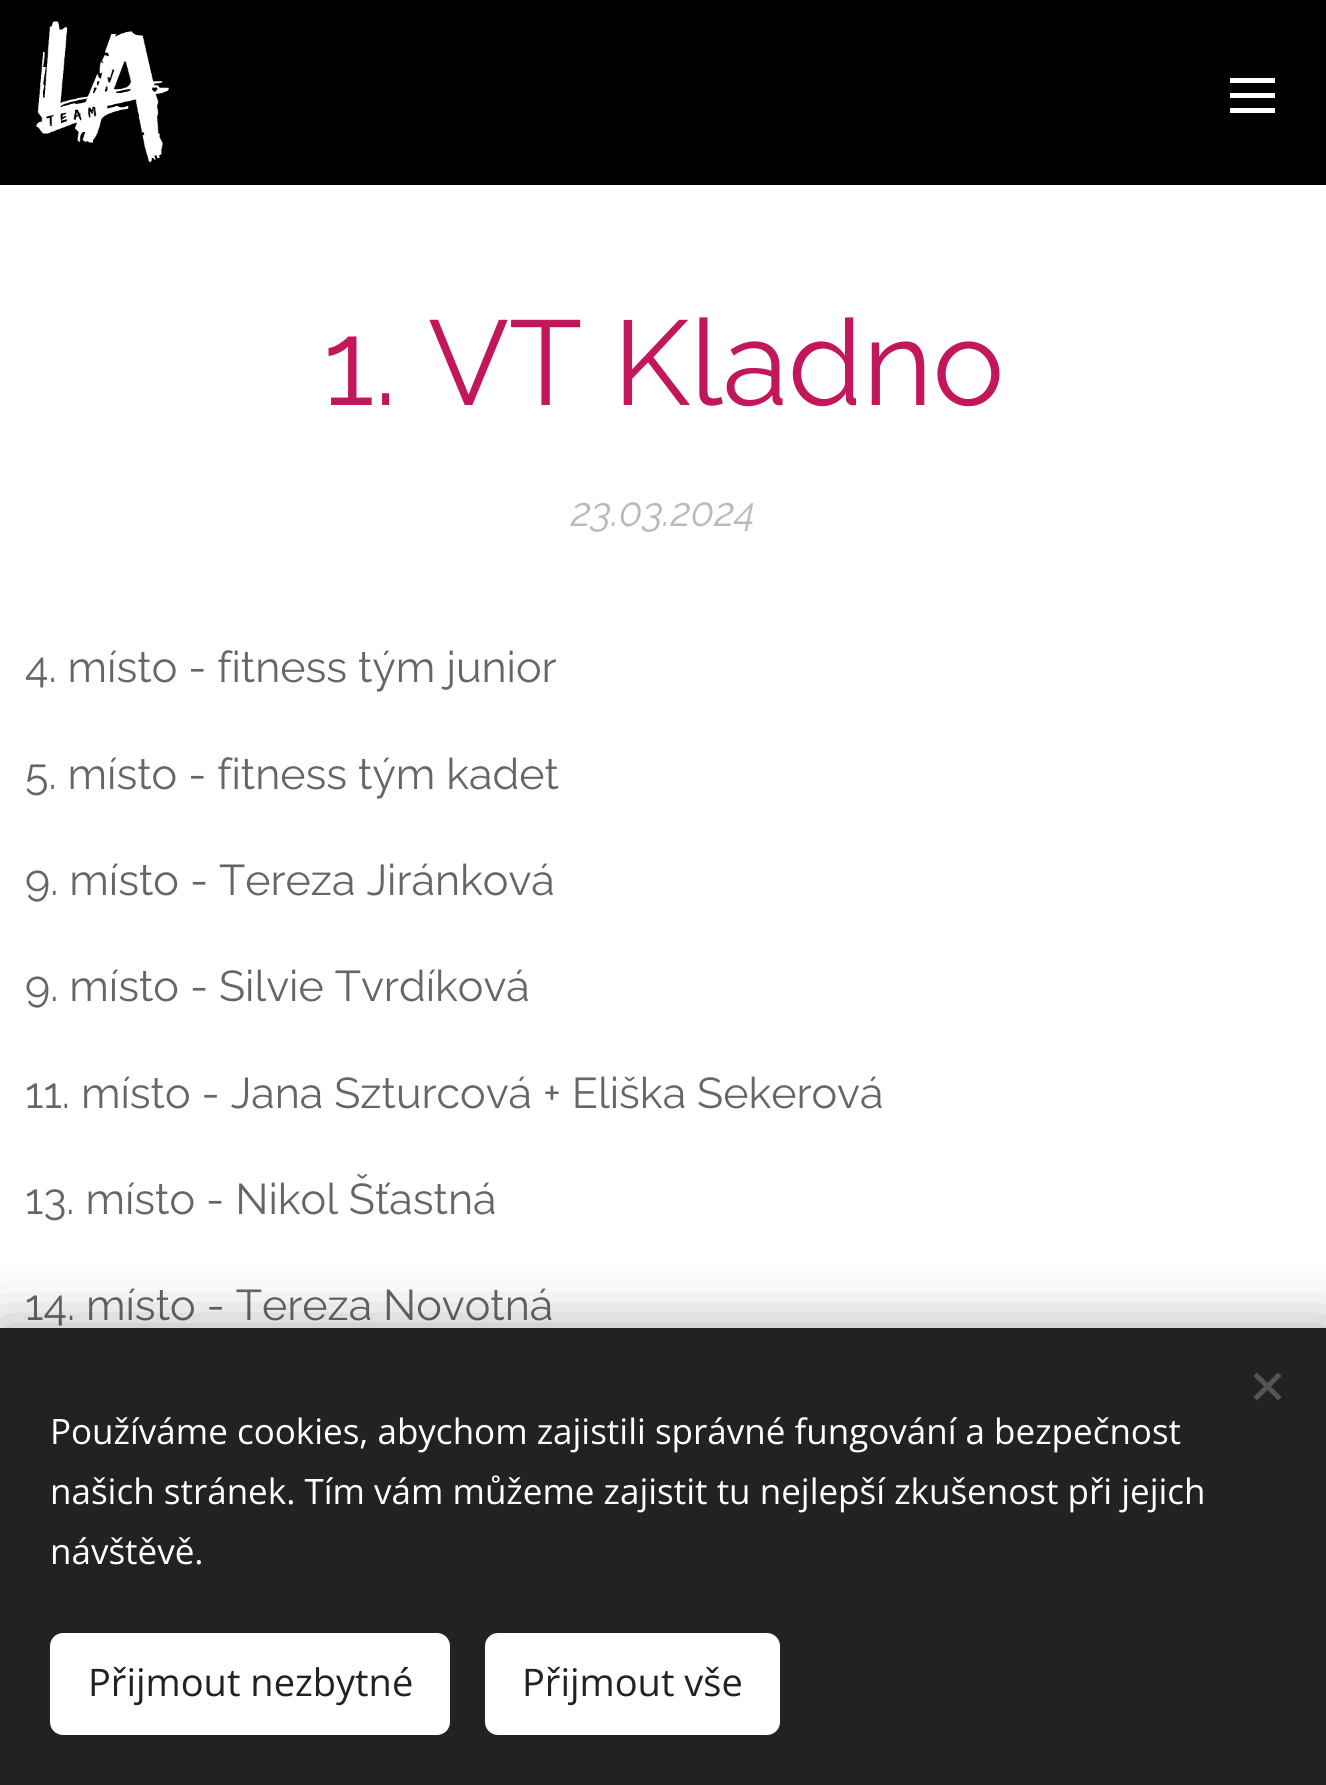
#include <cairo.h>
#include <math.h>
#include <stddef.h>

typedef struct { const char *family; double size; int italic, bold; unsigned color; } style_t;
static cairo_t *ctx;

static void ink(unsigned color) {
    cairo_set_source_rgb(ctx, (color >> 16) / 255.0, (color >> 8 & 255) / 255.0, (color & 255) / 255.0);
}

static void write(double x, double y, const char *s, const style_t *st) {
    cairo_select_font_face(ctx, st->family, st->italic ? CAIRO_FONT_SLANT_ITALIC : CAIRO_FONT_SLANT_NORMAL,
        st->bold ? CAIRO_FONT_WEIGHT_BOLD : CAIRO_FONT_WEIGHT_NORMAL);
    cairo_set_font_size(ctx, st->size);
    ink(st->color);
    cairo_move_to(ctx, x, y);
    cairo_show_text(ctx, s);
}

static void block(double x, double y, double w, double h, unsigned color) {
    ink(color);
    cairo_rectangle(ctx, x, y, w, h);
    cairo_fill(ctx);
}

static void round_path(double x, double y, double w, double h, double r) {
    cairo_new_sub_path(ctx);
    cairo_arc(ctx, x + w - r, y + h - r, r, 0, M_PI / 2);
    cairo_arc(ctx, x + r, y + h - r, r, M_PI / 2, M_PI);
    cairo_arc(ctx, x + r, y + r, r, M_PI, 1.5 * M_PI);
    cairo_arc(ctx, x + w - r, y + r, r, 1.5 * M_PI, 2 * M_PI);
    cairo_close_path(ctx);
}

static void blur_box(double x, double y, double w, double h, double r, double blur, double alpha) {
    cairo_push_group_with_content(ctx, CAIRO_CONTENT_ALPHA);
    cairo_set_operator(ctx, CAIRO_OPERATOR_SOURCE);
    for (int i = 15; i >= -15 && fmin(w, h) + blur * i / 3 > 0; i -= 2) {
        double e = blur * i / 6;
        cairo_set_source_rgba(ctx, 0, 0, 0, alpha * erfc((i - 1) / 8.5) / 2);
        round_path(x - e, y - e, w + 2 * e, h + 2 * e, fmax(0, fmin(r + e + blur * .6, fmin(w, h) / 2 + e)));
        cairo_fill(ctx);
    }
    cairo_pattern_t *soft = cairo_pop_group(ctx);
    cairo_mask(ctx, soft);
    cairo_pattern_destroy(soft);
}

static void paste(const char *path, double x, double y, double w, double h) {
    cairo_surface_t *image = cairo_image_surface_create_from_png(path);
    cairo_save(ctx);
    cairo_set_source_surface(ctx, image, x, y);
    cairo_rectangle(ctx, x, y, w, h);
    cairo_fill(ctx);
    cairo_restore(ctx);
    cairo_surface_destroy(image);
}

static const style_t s1 = {"Raleway", 120, 0, 0, 0xc2185b};
static const style_t s2 = {"Raleway", 40, 1, 0, 0xbababa};
static const style_t s3 = {"Raleway", 43, 0, 0, 0x666666};
static const style_t s4 = {"Open Sans", 35, 0, 0, 0xffffff};
static const style_t s5 = {"Open Sans", 38, 0, 0, 0x222222};

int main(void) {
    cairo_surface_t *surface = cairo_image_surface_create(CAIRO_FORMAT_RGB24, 1326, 1785);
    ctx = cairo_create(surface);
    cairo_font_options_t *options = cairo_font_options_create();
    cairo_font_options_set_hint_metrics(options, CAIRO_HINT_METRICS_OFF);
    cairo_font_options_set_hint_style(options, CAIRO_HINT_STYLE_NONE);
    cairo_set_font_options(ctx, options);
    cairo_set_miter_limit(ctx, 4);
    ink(0xffffff);
    cairo_paint(ctx);
    block(0, 0, 1326, 185, 0x000000);
    paste("pic1.png", 36, 21, 133, 141);
    block(1230, 93, 45, 5, 0xffffff);
    block(1230, 78, 45, 5, 0xffffff);
    block(1230, 108, 45, 5, 0xffffff);
    write(323, 405, "1. VT Kladno", &s1);
    write(571, 526, "23.03.2024", &s2);
    write(25, 682, "4. místo - fitness tým junior", &s3);
    write(25, 789, "5. místo - fitness tým kadet", &s3);
    write(25, 895, "9. místo - Tereza Jiránková", &s3);
    write(25, 1001, "9. místo - Silvie Tvrdíková", &s3);
    write(25, 1108, "11. místo - Jana Szturcová + Eliška Sekerová", &s3);
    write(25, 1214, "13. místo - Nikol Šťastná", &s3);
    write(25, 1320, "14. místo - Tereza Novotná", &s3);
    ink(0x000000);
    blur_box(0, 1328, 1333, 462, 0, 31, 0.33);
    block(0, 1328, 1326, 457, 0x222222);
    ink(0x555555);
    cairo_new_path(ctx);
    cairo_move_to(ctx, 1253.5, 1397);
    cairo_line_to(ctx, 1278, 1372.5);
    cairo_line_to(ctx, 1281.5, 1376);
    cairo_line_to(ctx, 1257, 1400.5);
    cairo_close_path(ctx);
    cairo_fill(ctx);
    cairo_new_path(ctx);
    cairo_move_to(ctx, 1257, 1372.5);
    cairo_line_to(ctx, 1281.5, 1397);
    cairo_line_to(ctx, 1278, 1400.5);
    cairo_line_to(ctx, 1253.5, 1376);
    cairo_close_path(ctx);
    cairo_fill(ctx);
    write(50, 1444, "Používáme cookies, abychom zajistili správné fungování a bezpečnost", &s4);
    write(50, 1504, "našich stránek. Tím vám můžeme zajistit tu nejlepší zkušenost při jejich", &s4);
    write(50, 1564, "návštěvě.", &s4);
    round_path(50, 1633, 400, 102, 13);
    cairo_fill(ctx);
    write(88, 1696, "Přijmout nezbytné", &s5);
    ink(0xffffff);
    round_path(485, 1633, 295, 102, 13);
    cairo_fill(ctx);
    write(522, 1696, "Přijmout vše", &s5);
    cairo_surface_write_to_png(surface, "screenshot.png");
    cairo_font_options_destroy(options);
    cairo_destroy(ctx);
    cairo_surface_destroy(surface);
    return 0;
}
